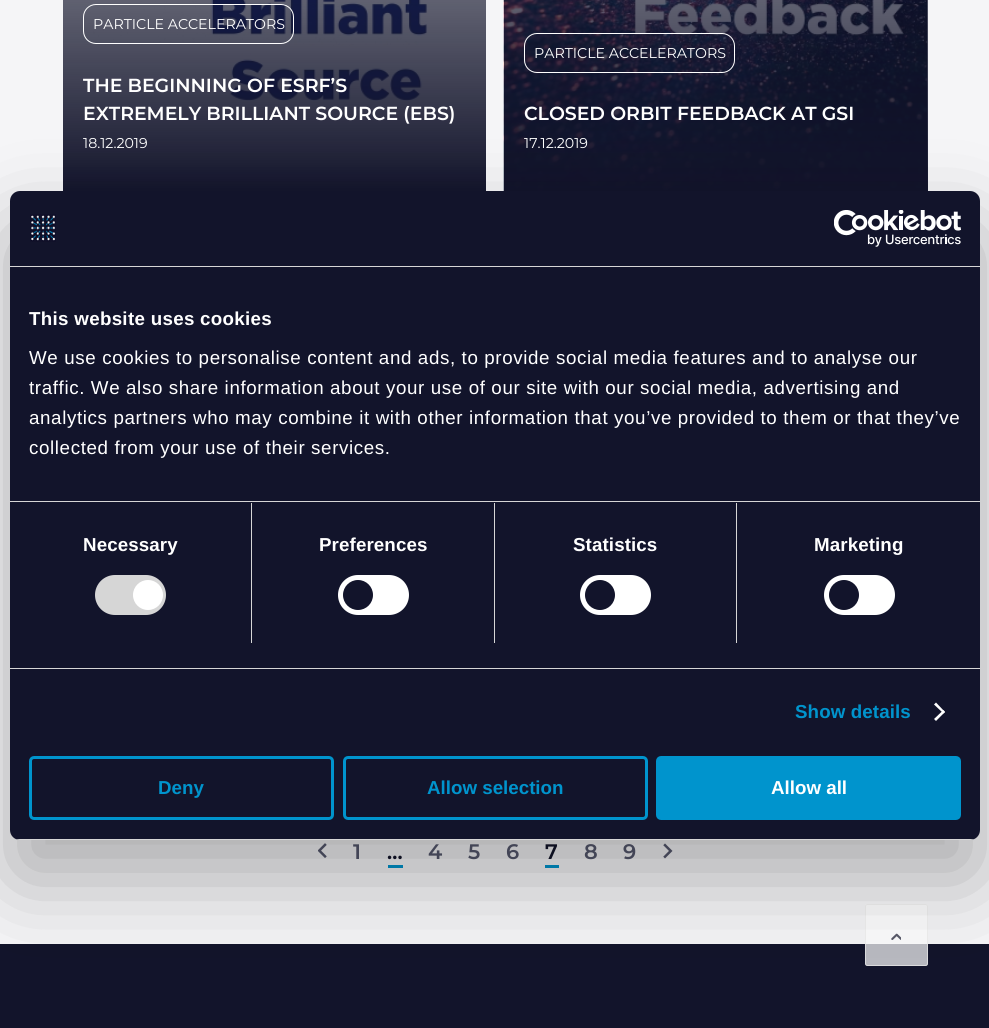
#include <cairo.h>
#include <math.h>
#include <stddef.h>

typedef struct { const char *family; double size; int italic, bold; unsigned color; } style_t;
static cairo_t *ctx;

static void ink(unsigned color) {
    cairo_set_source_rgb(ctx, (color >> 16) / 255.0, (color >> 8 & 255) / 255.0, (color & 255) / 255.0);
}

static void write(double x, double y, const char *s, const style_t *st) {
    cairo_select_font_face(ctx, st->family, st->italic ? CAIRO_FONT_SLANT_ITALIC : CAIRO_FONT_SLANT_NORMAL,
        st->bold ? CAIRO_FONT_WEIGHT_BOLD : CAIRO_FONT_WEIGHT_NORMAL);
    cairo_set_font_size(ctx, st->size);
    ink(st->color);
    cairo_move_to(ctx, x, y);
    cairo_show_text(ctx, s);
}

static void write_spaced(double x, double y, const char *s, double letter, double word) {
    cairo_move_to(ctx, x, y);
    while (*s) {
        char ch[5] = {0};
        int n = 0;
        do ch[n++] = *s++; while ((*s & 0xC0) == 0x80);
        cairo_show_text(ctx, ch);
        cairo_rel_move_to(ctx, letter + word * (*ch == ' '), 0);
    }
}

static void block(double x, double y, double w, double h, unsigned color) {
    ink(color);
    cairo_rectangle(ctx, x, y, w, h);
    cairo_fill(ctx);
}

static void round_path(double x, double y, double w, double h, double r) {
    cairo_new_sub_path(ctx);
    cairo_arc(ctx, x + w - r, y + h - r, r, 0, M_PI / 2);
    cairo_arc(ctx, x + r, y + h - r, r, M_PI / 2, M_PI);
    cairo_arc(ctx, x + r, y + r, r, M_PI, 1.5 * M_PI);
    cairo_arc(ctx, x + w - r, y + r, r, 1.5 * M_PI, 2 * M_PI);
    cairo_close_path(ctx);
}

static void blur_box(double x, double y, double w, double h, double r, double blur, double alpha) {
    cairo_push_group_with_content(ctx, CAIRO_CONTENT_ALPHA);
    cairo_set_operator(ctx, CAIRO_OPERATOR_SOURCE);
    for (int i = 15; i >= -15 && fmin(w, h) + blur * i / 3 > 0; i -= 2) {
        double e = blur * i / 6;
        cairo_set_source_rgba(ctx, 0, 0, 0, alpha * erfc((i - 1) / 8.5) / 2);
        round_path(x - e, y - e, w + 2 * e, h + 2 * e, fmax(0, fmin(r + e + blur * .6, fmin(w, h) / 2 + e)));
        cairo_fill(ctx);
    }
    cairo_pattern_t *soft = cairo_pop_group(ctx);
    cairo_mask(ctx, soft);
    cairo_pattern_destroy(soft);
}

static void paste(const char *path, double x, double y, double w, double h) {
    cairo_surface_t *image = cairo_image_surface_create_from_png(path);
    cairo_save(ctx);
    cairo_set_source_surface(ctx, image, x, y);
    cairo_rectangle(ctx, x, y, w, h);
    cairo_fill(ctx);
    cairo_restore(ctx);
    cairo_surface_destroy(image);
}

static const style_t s1 = {"Montserrat", 14.2, 0, 0, 0xffffff};
static const style_t s2 = {"Montserrat SemiBold", 18.9, 0, 0, 0xffffff};
static const style_t s3 = {"Montserrat SemiBold", 21, 0, 0, 0x56596f};
static const style_t s4 = {"Montserrat SemiBold", 21, 0, 0, 0x12142b};
static const style_t s5 = {"Liberation Sans", 18.75, 0, 1, 0x0094cd};
static const style_t s6 = {"Liberation Sans", 18.75, 0, 1, 0xffffff};

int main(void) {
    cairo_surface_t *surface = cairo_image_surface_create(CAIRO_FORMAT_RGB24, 989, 1028);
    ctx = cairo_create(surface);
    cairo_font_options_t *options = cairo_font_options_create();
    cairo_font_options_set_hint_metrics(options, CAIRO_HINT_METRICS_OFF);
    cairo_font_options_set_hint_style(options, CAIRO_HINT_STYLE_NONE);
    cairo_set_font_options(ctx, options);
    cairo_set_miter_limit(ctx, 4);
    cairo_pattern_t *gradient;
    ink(0xf5f5f7);
    cairo_paint(ctx);
    block(63, 0, 423, 191, 0xffffff);
    paste("pic1.png", 83, 0, 345, 101);
    gradient = cairo_pattern_create_linear(274, -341, 274, 194);
    cairo_pattern_add_color_stop_rgba(gradient, 0, 0.071, 0.078, 0.169, 0.1);
    cairo_pattern_add_color_stop_rgba(gradient, 1, 0.071, 0.078, 0.169, 1);
    cairo_set_source(ctx, gradient);
    cairo_pattern_destroy(gradient);
    cairo_rectangle(ctx, 63, 0, 423, 191);
    cairo_fill(ctx);
    round_path(83.5, 4.5, 210, 39, 12.5);
    ink(0xffffff);
    cairo_set_line_width(ctx, 1);
    cairo_stroke(ctx);
    write(93, 29, "PARTICLE ACCELERATORS", &s1);
    write(83, 92, "THE BEGINNING OF ESRF’S", &s2);
    write(83, 120, "EXTREMELY BRILLIANT SOURCE (EBS)", &s2);
    write(83, 148, "18.12.2019", &s1);
    block(927, 0, 1, 191, 0xffffff);
    paste("pic2.png", 503, 0, 425, 191);
    gradient = cairo_pattern_create_linear(716, -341, 716, 194);
    cairo_pattern_add_color_stop_rgba(gradient, 0, 0.071, 0.078, 0.169, 0.1);
    cairo_pattern_add_color_stop_rgba(gradient, 1, 0.071, 0.078, 0.169, 1);
    cairo_set_source(ctx, gradient);
    cairo_pattern_destroy(gradient);
    cairo_rectangle(ctx, 504, 0, 424, 191);
    cairo_fill(ctx);
    round_path(524.5, 33.5, 210, 39, 12.5);
    ink(0xffffff);
    cairo_stroke(ctx);
    write(534, 58, "PARTICLE ACCELERATORS", &s1);
    write(524, 120, "CLOSED ORBIT FEEDBACK AT GSI", &s2);
    write(524, 148, "17.12.2019", &s1);
    paste("pic3.png", 318, 843, 9, 15);
    write(353, 859, "1", &s3);
    write(387, 859, "…", &s4);
    block(388, 865, 15, 3, 0x0094cd);
    write(428, 859, "4", &s3);
    write(468, 859, "5", &s3);
    write(506, 859, "6", &s3);
    write(545, 859, "7", &s4);
    block(545, 865, 14, 3, 0x0094cd);
    write(584, 859, "8", &s3);
    write(623, 859, "9", &s3);
    paste("pic4.png", 663, 843, 10, 16);
    block(0, 944, 989, 84, 0x12142b);
    cairo_set_source_rgba(ctx, 1, 1, 1, 0.7);
    round_path(865, 904, 63, 62, 2.5);
    cairo_fill(ctx);
    round_path(865.5, 904.5, 62, 61, 2);
    cairo_set_source_rgba(ctx, 0.922, 0.922, 0.922, 0.7);
    cairo_stroke(ctx);
    paste("pic7.png", 891, 933, 10, 7);
    ink(0x000000);
    blur_box(10, 231, 970, 649, 10, 42.5, 0.3);
    ink(0x12142b);
    round_path(10, 191, 970, 649, 10);
    cairo_fill(ctx);
    block(10, 266, 970, 1, 0xd6d6d6);
    paste("pic5.png", 30, 214, 26, 28);
    paste("pic6.png", 834, 210, 127, 37);
    block(10, 501, 970, 1, 0xd6d6d6);
    cairo_select_font_face(ctx, "Liberation Sans", CAIRO_FONT_SLANT_NORMAL, CAIRO_FONT_WEIGHT_BOLD);
    cairo_set_font_size(ctx, 18.75);
    ink(0xffffff);
    write_spaced(29, 325, "This website uses cookies", 0.3, 0);
    cairo_select_font_face(ctx, "Liberation Sans", CAIRO_FONT_SLANT_NORMAL, CAIRO_FONT_WEIGHT_NORMAL);
    write_spaced(29, 364, "We use cookies to personalise content and ads, to provide social media features and to analyse our", 0.62, 0);
    write_spaced(29, 394, "traffic. We also share information about your use of our site with our social media, advertising and", 0.62, 0);
    write_spaced(29, 424, "analytics partners who may combine it with other information that you’ve provided to them or that they’ve", 0.62, 0);
    write_spaced(29, 454, "collected from your use of their services.", 0.62, 0);
    block(10, 668, 970, 1, 0xd6d6d6);
    block(251, 503, 1, 140, 0xd6d6d6);
    cairo_select_font_face(ctx, "Liberation Sans", CAIRO_FONT_SLANT_NORMAL, CAIRO_FONT_WEIGHT_BOLD);
    ink(0xffffff);
    write_spaced(83, 551, "Necessary", 0.1, 0);
    ink(0xd6d6d6);
    round_path(95, 575, 71, 40, 20);
    cairo_fill(ctx);
    ink(0xffffff);
    cairo_arc(ctx, 148, 595, 15, 0, 2 * M_PI);
    cairo_fill(ctx);
    block(494, 503, 1, 140, 0xd6d6d6);
    ink(0xffffff);
    write_spaced(319, 551, "Preferences", 0.1, 0);
    round_path(338, 575, 71, 40, 20);
    cairo_fill(ctx);
    ink(0x12142b);
    cairo_arc(ctx, 358, 595, 15, 0, 2 * M_PI);
    cairo_fill(ctx);
    block(736, 503, 1, 140, 0xd6d6d6);
    ink(0xffffff);
    write_spaced(573, 551, "Statistics", 0.1, 0);
    round_path(580, 575, 71, 40, 20);
    cairo_fill(ctx);
    ink(0x12142b);
    cairo_arc(ctx, 600, 595, 15, 0, 2 * M_PI);
    cairo_fill(ctx);
    ink(0xffffff);
    write_spaced(814, 551, "Marketing", 0.1, 0);
    round_path(824, 575, 71, 40, 20);
    cairo_fill(ctx);
    ink(0x12142b);
    cairo_arc(ctx, 844, 595, 15, 0, 2 * M_PI);
    cairo_fill(ctx);
    ink(0x0094cd);
    write_spaced(795, 718, "Show details", 0.1, 0);
    ink(0xffffff);
    cairo_new_path(ctx);
    cairo_move_to(ctx, 936, 702.5);
    cairo_line_to(ctx, 945, 712);
    cairo_line_to(ctx, 943.5, 713.5);
    cairo_line_to(ctx, 934, 704.5);
    cairo_close_path(ctx);
    cairo_fill(ctx);
    cairo_new_path(ctx);
    cairo_move_to(ctx, 943.5, 710);
    cairo_line_to(ctx, 945, 712);
    cairo_line_to(ctx, 936, 721);
    cairo_line_to(ctx, 934, 719);
    cairo_close_path(ctx);
    cairo_fill(ctx);
    cairo_save(ctx);
    round_path(10, 191, 970, 649, 10);
    cairo_clip(ctx);
    block(10, 839, 970, 1, 0xd6d6d6);
    cairo_restore(ctx);
    round_path(30.5, 757.5, 302, 61, 3.5);
    ink(0x0094cd);
    cairo_set_line_width(ctx, 3);
    cairo_stroke(ctx);
    write(158, 794, "Deny", &s5);
    round_path(344.5, 757.5, 302, 61, 3.5);
    cairo_stroke(ctx);
    write(427, 794, "Allow selection", &s5);
    round_path(657.5, 757.5, 302, 61, 3.5);
    cairo_fill_preserve(ctx);
    cairo_stroke(ctx);
    write(771, 794, "Allow all", &s6);
    cairo_surface_write_to_png(surface, "screenshot.png");
    cairo_font_options_destroy(options);
    cairo_destroy(ctx);
    cairo_surface_destroy(surface);
    return 0;
}
